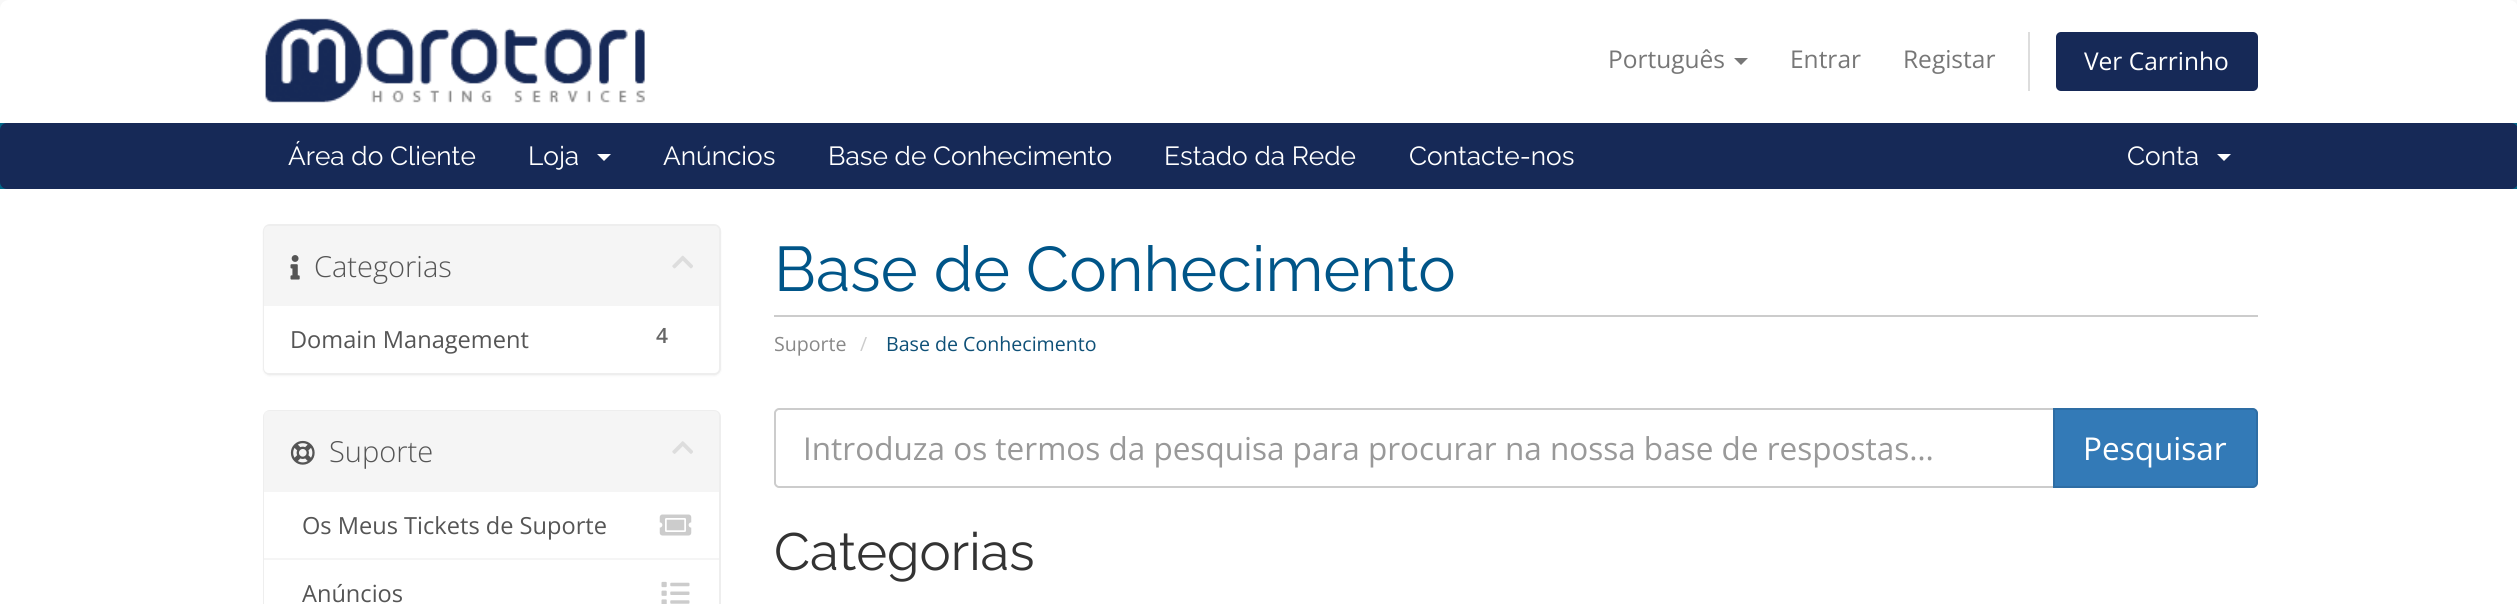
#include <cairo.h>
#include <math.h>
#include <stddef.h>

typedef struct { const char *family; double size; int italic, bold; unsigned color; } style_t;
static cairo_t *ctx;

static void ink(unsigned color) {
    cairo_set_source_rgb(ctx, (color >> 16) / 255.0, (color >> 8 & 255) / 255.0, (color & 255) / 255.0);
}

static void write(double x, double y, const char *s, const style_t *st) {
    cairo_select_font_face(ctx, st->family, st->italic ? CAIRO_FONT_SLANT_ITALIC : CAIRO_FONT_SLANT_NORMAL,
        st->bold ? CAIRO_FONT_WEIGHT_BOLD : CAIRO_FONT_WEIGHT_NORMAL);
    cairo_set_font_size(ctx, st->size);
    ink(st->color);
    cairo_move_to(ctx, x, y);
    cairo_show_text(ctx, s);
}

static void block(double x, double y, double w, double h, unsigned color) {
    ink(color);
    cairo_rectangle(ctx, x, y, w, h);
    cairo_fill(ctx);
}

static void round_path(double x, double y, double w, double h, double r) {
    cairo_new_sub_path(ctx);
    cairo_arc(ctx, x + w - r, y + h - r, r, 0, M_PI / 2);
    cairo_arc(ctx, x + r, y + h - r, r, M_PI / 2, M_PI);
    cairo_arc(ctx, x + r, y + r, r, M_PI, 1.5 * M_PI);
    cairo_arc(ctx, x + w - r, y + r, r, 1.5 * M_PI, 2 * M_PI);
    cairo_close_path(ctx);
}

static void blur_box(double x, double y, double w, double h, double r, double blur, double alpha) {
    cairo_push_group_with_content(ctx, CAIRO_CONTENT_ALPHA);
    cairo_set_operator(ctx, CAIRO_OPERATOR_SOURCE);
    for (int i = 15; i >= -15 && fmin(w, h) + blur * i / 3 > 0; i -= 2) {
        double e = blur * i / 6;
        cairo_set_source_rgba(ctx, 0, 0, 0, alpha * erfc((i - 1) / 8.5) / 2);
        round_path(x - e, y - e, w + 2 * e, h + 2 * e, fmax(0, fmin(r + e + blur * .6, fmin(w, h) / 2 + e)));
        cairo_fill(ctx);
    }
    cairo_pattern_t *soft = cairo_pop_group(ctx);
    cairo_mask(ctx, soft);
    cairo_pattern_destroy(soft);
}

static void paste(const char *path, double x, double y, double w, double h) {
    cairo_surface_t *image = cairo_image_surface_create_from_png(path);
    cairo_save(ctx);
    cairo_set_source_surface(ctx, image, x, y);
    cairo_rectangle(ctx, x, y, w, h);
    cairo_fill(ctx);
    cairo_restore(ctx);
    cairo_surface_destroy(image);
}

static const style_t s1 = {"Open Sans", 24.5, 0, 0, 0x777777};
static const style_t s2 = {"Open Sans", 24.5, 0, 0, 0xffffff};
static const style_t s3 = {"Raleway", 26.25, 0, 0, 0xffffff};
static const style_t s4 = {"Open Sans Light", 29, 0, 0, 0x555555};
static const style_t s5 = {"Open Sans", 23.6, 0, 0, 0x555555};
static const style_t s6 = {"Open Sans SemiBold", 21, 0, 0, 0x666666};
static const style_t s7 = {"Raleway", 63, 0, 0, 0x005588};
static const style_t s8 = {"Open Sans", 19.6, 0, 0, 0x888888};
static const style_t s9 = {"Open Sans", 19.6, 0, 0, 0xcccccc};
static const style_t s10 = {"Open Sans", 19.6, 0, 0, 0x0e5077};
static const style_t s11 = {"Open Sans", 31.5, 0, 0, 0x999999};
static const style_t s12 = {"Open Sans", 31.5, 0, 0, 0xffffff};
static const style_t s13 = {"Raleway", 52.5, 0, 0, 0x333333};

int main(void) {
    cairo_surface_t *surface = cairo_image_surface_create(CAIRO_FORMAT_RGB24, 2517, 604);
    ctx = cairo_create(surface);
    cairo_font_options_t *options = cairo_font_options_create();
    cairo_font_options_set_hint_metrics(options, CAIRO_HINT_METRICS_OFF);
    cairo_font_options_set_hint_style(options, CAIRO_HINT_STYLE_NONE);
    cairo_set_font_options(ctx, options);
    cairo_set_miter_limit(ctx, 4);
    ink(0xf8f8f8);
    cairo_paint(ctx);
    ink(0xffffff);
    cairo_new_path(ctx);
    cairo_move_to(ctx, 9, 0);
    cairo_line_to(ctx, 2509, 0);
    cairo_curve_to(ctx, 2514, 0, 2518, 4, 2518, 9);
    cairo_line_to(ctx, 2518, 123);
    cairo_line_to(ctx, 0, 123);
    cairo_line_to(ctx, 0, 9);
    cairo_curve_to(ctx, 0, 4, 4, 0, 9, 0);
    cairo_close_path(ctx);
    cairo_fill(ctx);
    paste("pic1.png", 265, 18, 380, 85);
    write(1608, 68, "Português", &s1);
    cairo_new_path(ctx);
    cairo_move_to(ctx, 1734, 58);
    cairo_line_to(ctx, 1748, 58);
    cairo_line_to(ctx, 1741, 65);
    cairo_close_path(ctx);
    cairo_fill(ctx);
    write(1790, 68, "Entrar", &s1);
    write(1903, 68, "Registar", &s1);
    block(2028, 32, 2, 59, 0xdddddd);
    ink(0x162957);
    round_path(2056, 32, 202, 59, 5);
    cairo_fill(ctx);
    write(2084, 70, "Ver Carrinho", &s2);
    block(0, 123, 2517, 66, 0x006687);
    ink(0x162957);
    round_path(0, 123, 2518, 66, 7);
    cairo_fill(ctx);
    write(288, 165, "Área do Cliente", &s3);
    write(528, 165, "Loja", &s3);
    cairo_new_path(ctx);
    cairo_move_to(ctx, 597, 154);
    cairo_line_to(ctx, 611, 154);
    cairo_line_to(ctx, 604, 161);
    cairo_close_path(ctx);
    cairo_fill(ctx);
    write(663, 165, "Anúncios", &s3);
    write(828, 165, "Base de Conhecimento", &s3);
    write(1164, 165, "Estado da Rede", &s3);
    write(1409, 165, "Contacte-nos", &s3);
    write(2127, 165, "Conta", &s3);
    cairo_new_path(ctx);
    cairo_move_to(ctx, 2217, 154);
    cairo_line_to(ctx, 2231, 154);
    cairo_line_to(ctx, 2224, 161);
    cairo_close_path(ctx);
    cairo_fill(ctx);
    block(0, 189, 2517, 415, 0xffffff);
    ink(0x000000);
    blur_box(263, 226, 458, 150, 7, 1, 0.05);
    round_path(264, 225, 456, 149, 6);
    ink(0xeeeeee);
    cairo_stroke(ctx);
    ink(0xf5f5f5);
    cairo_new_path(ctx);
    cairo_move_to(ctx, 269, 226);
    cairo_line_to(ctx, 714, 226);
    cairo_curve_to(ctx, 717, 226, 719, 228, 719, 231);
    cairo_line_to(ctx, 719, 306);
    cairo_line_to(ctx, 264, 306);
    cairo_line_to(ctx, 264, 231);
    cairo_curve_to(ctx, 264, 228, 266, 226, 269, 226);
    cairo_close_path(ctx);
    cairo_fill(ctx);
    paste("pic2.png", 290, 255, 10, 25);
    write(314, 277, "Categorias", &s4);
    paste("pic3.png", 672, 255, 21, 14);
    ink(0xffffff);
    cairo_new_path(ctx);
    cairo_move_to(ctx, 264, 306);
    cairo_line_to(ctx, 719, 306);
    cairo_line_to(ctx, 719, 368);
    cairo_curve_to(ctx, 719, 371, 717, 373, 714, 373);
    cairo_line_to(ctx, 269, 373);
    cairo_curve_to(ctx, 266, 373, 264, 371, 264, 368);
    cairo_close_path(ctx);
    cairo_fill(ctx);
    write(290, 348, "Domain Management", &s5);
    write(656, 343, "4", &s6);
    block(774, 315, 1484, 2, 0xcccccc);
    write(774, 291, "Base de Conhecimento", &s7);
    write(774, 351, "Suporte", &s8);
    write(860, 351, "/", &s9);
    write(886, 351, "Base de Conhecimento", &s10);
    round_path(264, 411, 456, 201, 6);
    ink(0xeeeeee);
    cairo_stroke(ctx);
    ink(0xf5f5f5);
    cairo_new_path(ctx);
    cairo_move_to(ctx, 269, 411);
    cairo_line_to(ctx, 714, 411);
    cairo_curve_to(ctx, 717, 411, 719, 413, 719, 416);
    cairo_line_to(ctx, 719, 492);
    cairo_line_to(ctx, 264, 492);
    cairo_line_to(ctx, 264, 416);
    cairo_curve_to(ctx, 264, 413, 266, 411, 269, 411);
    cairo_close_path(ctx);
    cairo_fill(ctx);
    paste("pic4.png", 290, 440, 25, 25);
    write(329, 462, "Suporte", &s4);
    paste("pic5.png", 672, 441, 21, 13);
    block(264, 492, 1, 66, 0xffffff);
    block(264, 558, 455, 2, 0xf5f5f5);
    write(302, 534, "Os Meus Tickets de Suporte", &s5);
    paste("pic6.png", 659, 514, 33, 22);
    block(264, 560, 1, 44, 0xffffff);
    write(302, 602, "Anúncios", &s5);
    paste("pic7.png", 661, 581, 29, 23);
    cairo_new_path(ctx);
    cairo_move_to(ctx, 779, 409);
    cairo_line_to(ctx, 2054, 409);
    cairo_line_to(ctx, 2054, 487);
    cairo_line_to(ctx, 779, 487);
    cairo_curve_to(ctx, 777, 487, 775, 485, 775, 483);
    cairo_line_to(ctx, 775, 413);
    cairo_curve_to(ctx, 775, 411, 777, 409, 779, 409);
    cairo_close_path(ctx);
    ink(0xcccccc);
    cairo_stroke(ctx);
    write(803, 460, "Introduza os termos da pesquisa para procurar na nossa base de respostas…", &s11);
    ink(0x337ab7);
    cairo_new_path(ctx);
    cairo_move_to(ctx, 2054, 409);
    cairo_line_to(ctx, 2253, 409);
    cairo_curve_to(ctx, 2255, 409, 2257, 411, 2257, 413);
    cairo_line_to(ctx, 2257, 483);
    cairo_curve_to(ctx, 2257, 485, 2255, 487, 2253, 487);
    cairo_line_to(ctx, 2054, 487);
    cairo_close_path(ctx);
    cairo_fill_preserve(ctx);
    ink(0x2e6da4);
    cairo_stroke(ctx);
    write(2083, 460, "Pesquisar", &s12);
    write(774, 570, "Categorias", &s13);
    cairo_surface_write_to_png(surface, "screenshot.png");
    cairo_font_options_destroy(options);
    cairo_destroy(ctx);
    cairo_surface_destroy(surface);
    return 0;
}
